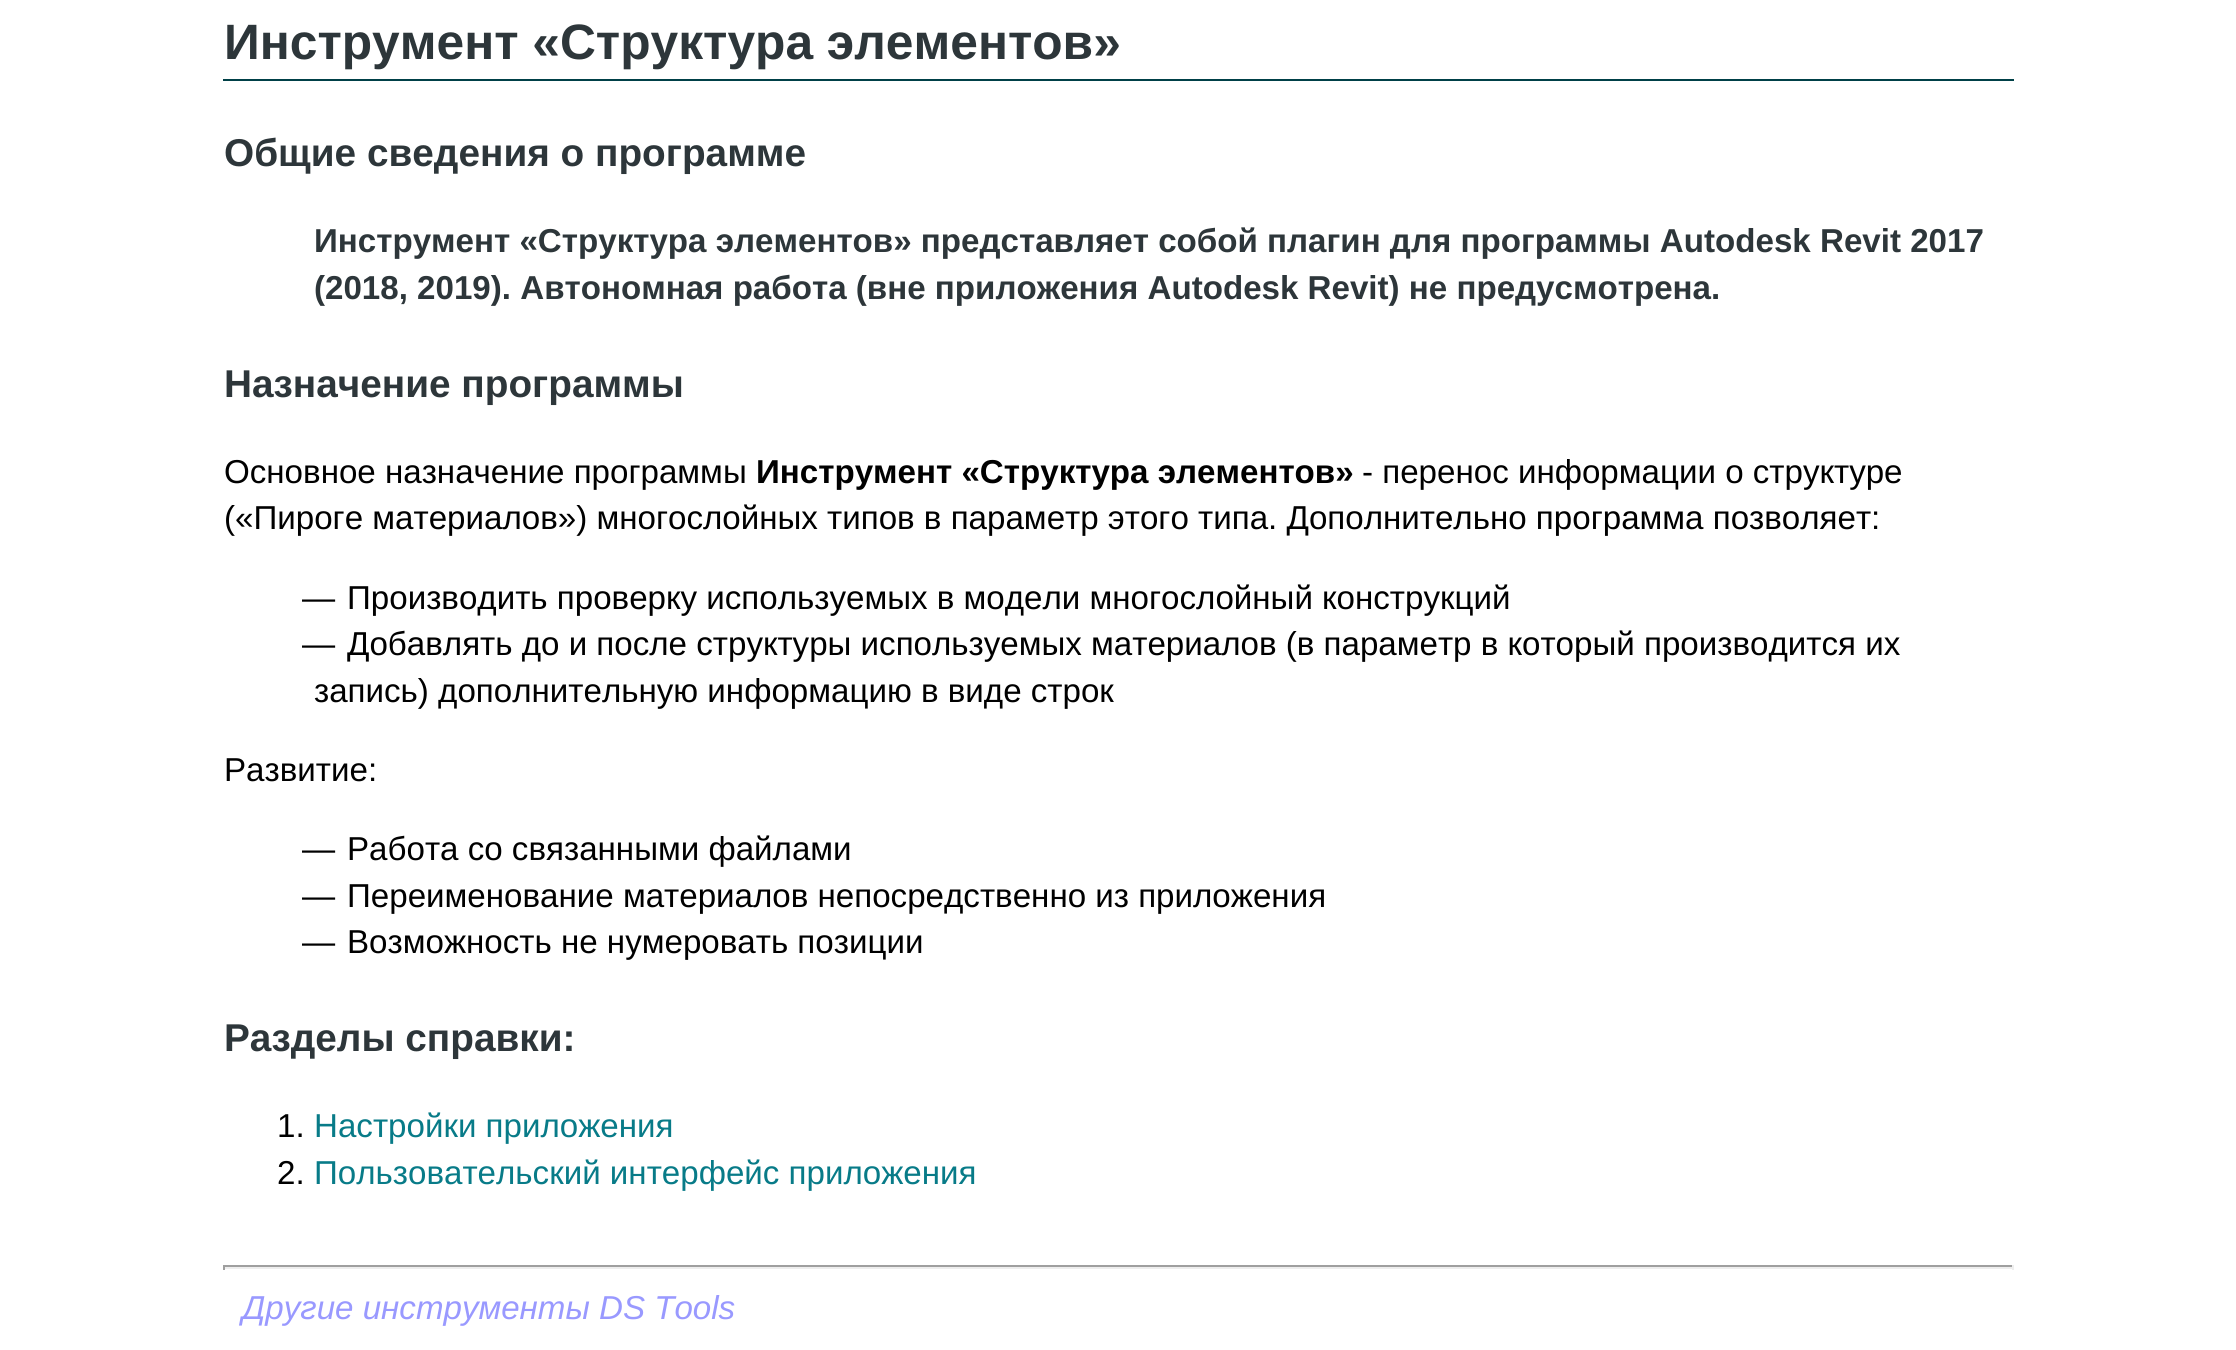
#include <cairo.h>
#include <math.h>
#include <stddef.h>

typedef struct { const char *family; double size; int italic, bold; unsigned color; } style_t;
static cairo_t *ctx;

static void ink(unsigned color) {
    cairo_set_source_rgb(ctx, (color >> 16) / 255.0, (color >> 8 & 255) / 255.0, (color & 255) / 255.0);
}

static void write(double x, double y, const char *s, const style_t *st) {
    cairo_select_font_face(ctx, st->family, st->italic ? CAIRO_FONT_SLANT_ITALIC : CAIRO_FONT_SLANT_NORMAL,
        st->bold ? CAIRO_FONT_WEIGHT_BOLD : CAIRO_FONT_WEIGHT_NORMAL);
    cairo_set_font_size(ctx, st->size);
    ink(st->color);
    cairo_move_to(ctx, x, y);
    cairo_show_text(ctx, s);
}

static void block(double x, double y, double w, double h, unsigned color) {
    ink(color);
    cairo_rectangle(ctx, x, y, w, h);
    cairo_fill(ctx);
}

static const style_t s1 = {"Liberation Sans", 49.7, 0, 1, 0x2d363a};
static const style_t s2 = {"Liberation Sans", 38.75, 0, 1, 0x2d363a};
static const style_t s3 = {"Liberation Sans", 33.12, 0, 1, 0x2d363a};
static const style_t s4 = {"Liberation Sans", 33.12, 0, 0, 0x000000};
static const style_t s5 = {"Liberation Sans", 33.12, 0, 1, 0x000000};
static const style_t s6 = {"Liberation Sans", 33.12, 0, 0, 0x087b88};
static const style_t s7 = {"Liberation Sans", 33.12, 1, 0, 0x9999ff};

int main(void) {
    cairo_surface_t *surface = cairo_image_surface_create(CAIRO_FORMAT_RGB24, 2236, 1350);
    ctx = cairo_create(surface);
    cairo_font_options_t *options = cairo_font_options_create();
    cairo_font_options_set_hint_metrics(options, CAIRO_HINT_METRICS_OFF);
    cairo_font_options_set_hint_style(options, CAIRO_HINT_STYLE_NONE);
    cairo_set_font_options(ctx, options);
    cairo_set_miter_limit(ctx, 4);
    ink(0xffffff);
    cairo_paint(ctx);
    block(223, 79, 1791, 2, 0x004047);
    write(224, 59, "Инструмент «Структура элементов»", &s1);
    write(224, 166, "Общие сведения о программе", &s2);
    write(314, 252, "Инструмент «Структура элементов» представляет собой плагин для программы Autodesk Revit 2017", &s3);
    write(314, 299, "(2018, 2019). Автономная работа (вне приложения Autodesk Revit) не предусмотрена.", &s3);
    write(224, 397, "Назначение программы", &s2);
    write(224, 483, "Основное назначение программы", &s4);
    write(756, 483, "Инструмент «Структура элементов»", &s5);
    write(1362, 483, "- перенос информации о структуре", &s4);
    write(224, 529, "(«Пироге материалов») многослойных типов в параметр этого типа. Дополнительно программа позволяет:", &s4);
    write(302, 609, "—", &s4);
    write(347, 609, "Производить проверку используемых в модели многослойный конструкций", &s4);
    write(302, 655, "—", &s4);
    write(347, 655, "Добавлять до и после структуры используемых материалов (в параметр в который производится их", &s4);
    write(314, 702, "запись) дополнительную информацию в виде строк", &s4);
    write(224, 781, "Развитие:", &s4);
    write(302, 860, "—", &s4);
    write(347, 860, "Работа со связанными файлами", &s4);
    write(302, 907, "—", &s4);
    write(347, 907, "Переименование материалов непосредственно из приложения", &s4);
    write(302, 953, "—", &s4);
    write(347, 953, "Возможность не нумеровать позиции", &s4);
    write(224, 1051, "Разделы справки:", &s2);
    write(277, 1137, "1.", &s4);
    write(314, 1137, "Настройки приложения", &s6);
    write(277, 1184, "2.", &s4);
    write(314, 1184, "Пользовательский интерфейс приложения", &s6);
    block(223, 1265, 1791, 2, 0x9f9f9f);
    block(2012, 1265, 2, 5, 0xeeeeee);
    block(223, 1267, 1791, 2, 0xeeeeee);
    block(223, 1265, 2, 5, 0x9f9f9f);
    write(242, 1319, "Другие инструменты DS Tools", &s7);
    cairo_surface_write_to_png(surface, "screenshot.png");
    cairo_font_options_destroy(options);
    cairo_destroy(ctx);
    cairo_surface_destroy(surface);
    return 0;
}
